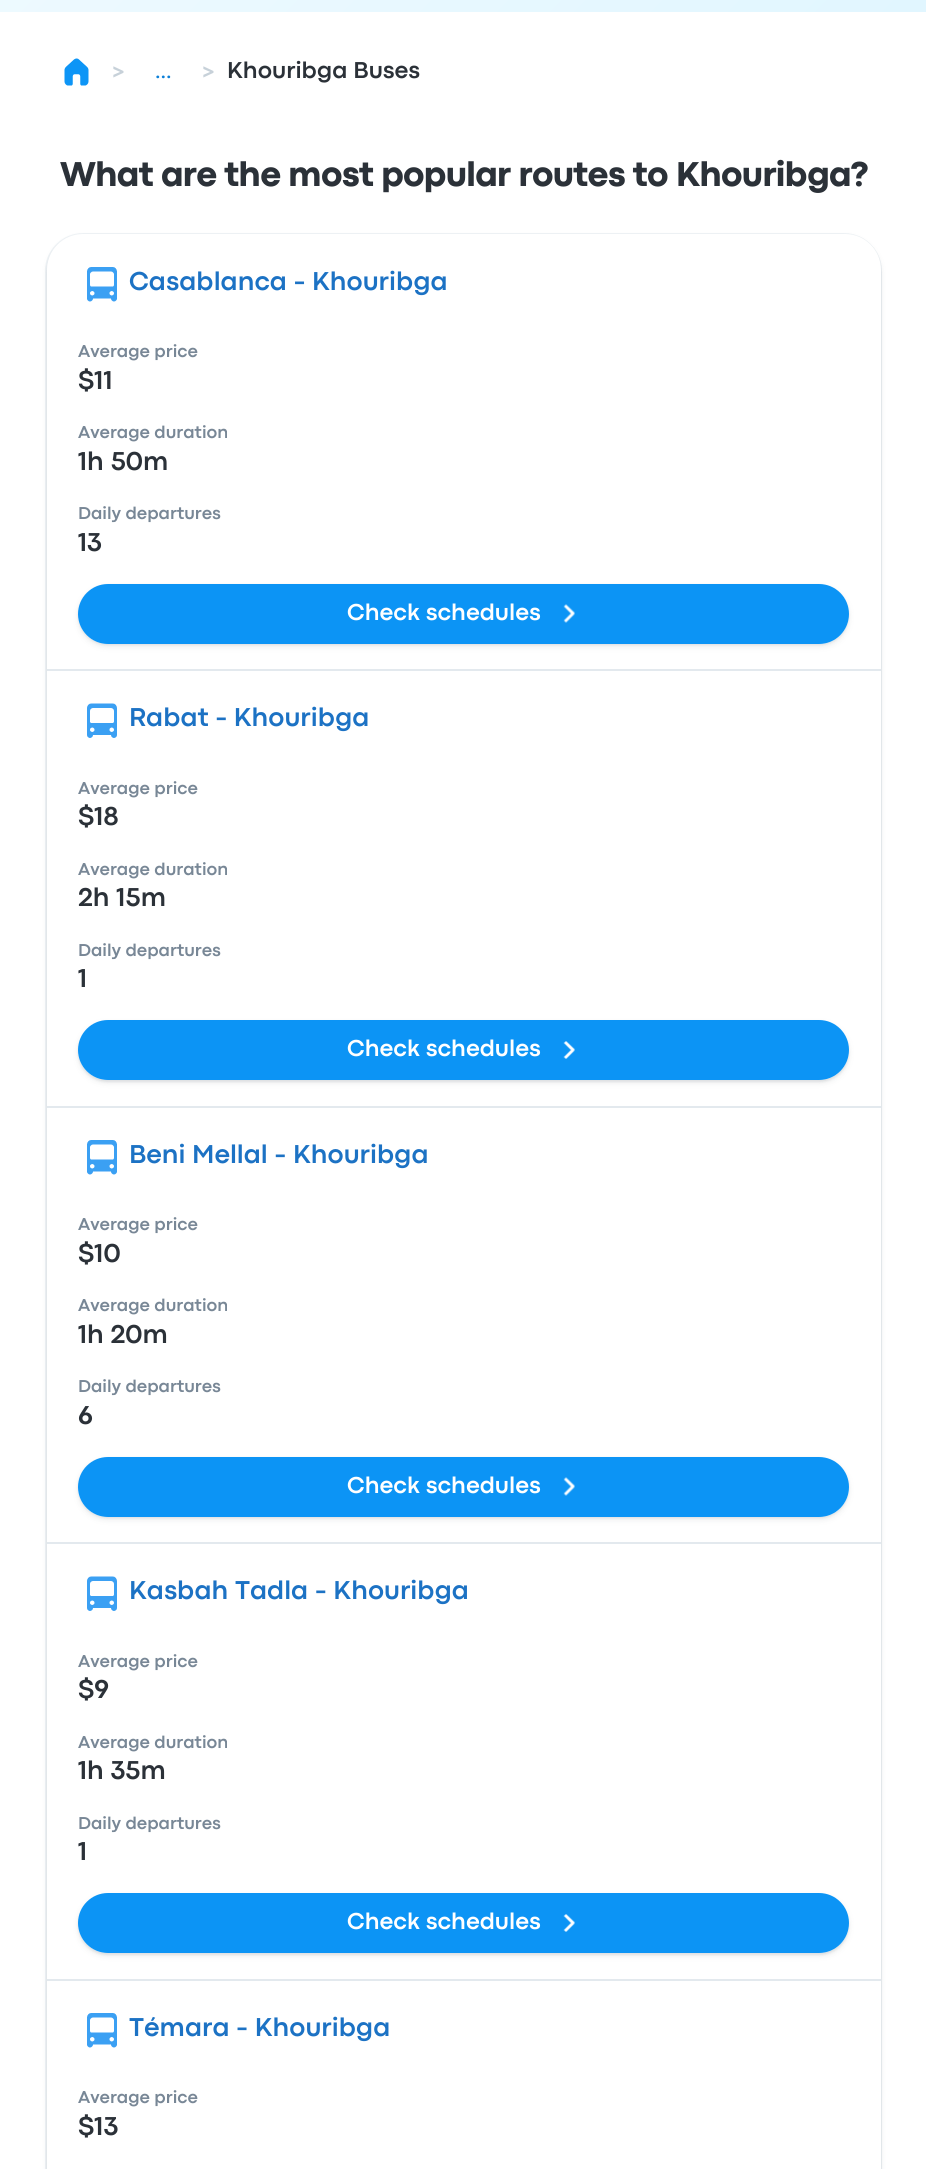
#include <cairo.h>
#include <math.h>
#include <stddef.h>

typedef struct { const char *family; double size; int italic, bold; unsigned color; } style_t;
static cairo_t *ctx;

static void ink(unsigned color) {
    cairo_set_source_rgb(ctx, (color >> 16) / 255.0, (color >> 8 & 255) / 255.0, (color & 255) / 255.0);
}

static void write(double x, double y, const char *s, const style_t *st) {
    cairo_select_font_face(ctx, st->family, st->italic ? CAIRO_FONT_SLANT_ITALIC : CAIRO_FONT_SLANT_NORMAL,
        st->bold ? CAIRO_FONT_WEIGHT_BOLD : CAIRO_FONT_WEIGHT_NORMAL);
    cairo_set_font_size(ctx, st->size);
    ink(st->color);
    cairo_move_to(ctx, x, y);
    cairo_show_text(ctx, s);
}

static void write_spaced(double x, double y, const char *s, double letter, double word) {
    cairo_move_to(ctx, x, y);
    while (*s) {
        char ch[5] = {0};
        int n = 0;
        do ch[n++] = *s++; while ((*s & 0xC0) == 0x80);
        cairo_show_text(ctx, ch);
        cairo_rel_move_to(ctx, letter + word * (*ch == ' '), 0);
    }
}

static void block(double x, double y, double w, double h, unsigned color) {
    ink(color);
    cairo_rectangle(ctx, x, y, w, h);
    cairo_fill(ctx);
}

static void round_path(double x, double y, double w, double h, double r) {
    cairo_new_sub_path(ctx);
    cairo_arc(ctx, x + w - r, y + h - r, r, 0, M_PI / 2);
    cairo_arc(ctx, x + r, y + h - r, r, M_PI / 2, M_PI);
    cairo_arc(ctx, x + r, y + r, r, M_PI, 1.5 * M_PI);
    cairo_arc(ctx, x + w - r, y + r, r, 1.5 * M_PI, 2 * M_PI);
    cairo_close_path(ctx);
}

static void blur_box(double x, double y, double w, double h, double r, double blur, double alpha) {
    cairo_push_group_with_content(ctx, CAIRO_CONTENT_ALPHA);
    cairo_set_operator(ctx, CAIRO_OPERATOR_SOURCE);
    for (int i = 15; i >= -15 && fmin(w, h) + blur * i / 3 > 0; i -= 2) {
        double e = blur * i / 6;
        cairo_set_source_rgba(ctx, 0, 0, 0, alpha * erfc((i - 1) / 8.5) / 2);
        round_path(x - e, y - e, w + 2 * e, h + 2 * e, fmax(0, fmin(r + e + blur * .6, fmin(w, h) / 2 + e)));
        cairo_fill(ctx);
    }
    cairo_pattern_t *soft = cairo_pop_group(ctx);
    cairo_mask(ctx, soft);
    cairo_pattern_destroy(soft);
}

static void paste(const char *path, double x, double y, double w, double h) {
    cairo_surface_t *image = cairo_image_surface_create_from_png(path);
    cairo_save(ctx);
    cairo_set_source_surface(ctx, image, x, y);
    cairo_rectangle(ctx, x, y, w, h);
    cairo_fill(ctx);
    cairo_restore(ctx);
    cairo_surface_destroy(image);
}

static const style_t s1 = {"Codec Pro", 24, 0, 1, 0xc7d1d9};
static const style_t s2 = {"Codec Pro", 21, 0, 1, 0x0d80d8};
static const style_t s3 = {"Codec Pro", 24, 0, 1, 0x2b3138};
static const style_t s4 = {"Codec Pro", 27, 0, 1, 0x1c72c4};
static const style_t s5 = {"Codec Pro", 18, 0, 1, 0x788796};
static const style_t s6 = {"Codec Pro", 27, 0, 1, 0x2b3138};
static const style_t s7 = {"Codec Pro", 24, 0, 1, 0xffffff};

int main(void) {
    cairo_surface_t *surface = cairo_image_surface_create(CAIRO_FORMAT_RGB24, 926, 2169);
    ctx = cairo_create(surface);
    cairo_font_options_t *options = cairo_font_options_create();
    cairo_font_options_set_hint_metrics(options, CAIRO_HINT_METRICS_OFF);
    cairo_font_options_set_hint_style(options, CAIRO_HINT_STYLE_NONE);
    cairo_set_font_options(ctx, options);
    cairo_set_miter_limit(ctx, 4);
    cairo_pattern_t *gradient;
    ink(0xffffff);
    cairo_paint(ctx);
    gradient = cairo_pattern_create_linear(76, -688, 851, 88);
    cairo_pattern_add_color_stop_rgba(gradient, 0, 0.961, 0.988, 1, 1);
    cairo_pattern_add_color_stop_rgba(gradient, 1, 0.882, 0.965, 1, 1);
    cairo_set_source(ctx, gradient);
    cairo_pattern_destroy(gradient);
    cairo_rectangle(ctx, 0, 0, 926, 12);
    cairo_fill(ctx);
    paste("pic1.png", 64, 58, 25, 28);
    write(112, 78, ">", &s1);
    write(155, 78, "...", &s2);
    write(202, 78, ">", &s1);
    write(227, 78, "Khouribga Buses", &s3);
    cairo_select_font_face(ctx, "Codec Pro ExtraBold", CAIRO_FONT_SLANT_NORMAL, CAIRO_FONT_WEIGHT_NORMAL);
    cairo_set_font_size(ctx, 36);
    write_spaced(60, 186, "What are the most popular routes to Khouribga?", -0.7, 0);
    ink(0x434d56);
    blur_box(47, 237, 834, 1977, 36, 3, 0.1);
    blur_box(47, 236, 834, 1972, 36, 1, 0.1);
    round_path(46, 234, 835, 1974, 37);
    cairo_set_source_rgba(ctx, 0.373, 0.529, 0.647, 0.1);
    cairo_stroke(ctx);
    ink(0xffffff);
    round_path(47, 234, 834, 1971, 36);
    cairo_fill(ctx);
    block(47, 669, 834, 2, 0xe3e9ee);
    paste("pic2.png", 87, 267, 30, 35);
    write(129, 290, "Casablanca - Khouribga", &s4);
    write(78, 357, "Average price", &s5);
    write(78, 389, "$11", &s6);
    write(78, 438, "Average duration", &s5);
    write(78, 470, "1h 50m", &s6);
    write(78, 519, "Daily departures", &s5);
    write(78, 551, "13", &s6);
    cairo_save(ctx);
    cairo_set_fill_rule(ctx, CAIRO_FILL_RULE_EVEN_ODD);
    cairo_new_path(ctx);
    cairo_move_to(ctx, 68, 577);
    cairo_line_to(ctx, 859, 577);
    cairo_line_to(ctx, 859, 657);
    cairo_line_to(ctx, 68, 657);
    cairo_close_path(ctx);
    cairo_move_to(ctx, 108, 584);
    cairo_line_to(ctx, 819, 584);
    cairo_curve_to(ctx, 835.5, 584, 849, 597.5, 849, 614);
    cairo_curve_to(ctx, 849, 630.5, 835.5, 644, 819, 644);
    cairo_line_to(ctx, 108, 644);
    cairo_curve_to(ctx, 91.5, 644, 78, 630.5, 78, 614);
    cairo_curve_to(ctx, 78, 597.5, 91.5, 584, 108, 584);
    cairo_close_path(ctx);
    cairo_clip(ctx);
    ink(0x434d56);
    blur_box(78, 587, 771, 60, 30, 3, 0.1);
    cairo_restore(ctx);
    cairo_save(ctx);
    cairo_set_fill_rule(ctx, CAIRO_FILL_RULE_EVEN_ODD);
    cairo_new_path(ctx);
    cairo_move_to(ctx, 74, 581);
    cairo_line_to(ctx, 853, 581);
    cairo_line_to(ctx, 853, 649);
    cairo_line_to(ctx, 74, 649);
    cairo_close_path(ctx);
    cairo_move_to(ctx, 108, 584);
    cairo_line_to(ctx, 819, 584);
    cairo_curve_to(ctx, 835.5, 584, 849, 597.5, 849, 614);
    cairo_curve_to(ctx, 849, 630.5, 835.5, 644, 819, 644);
    cairo_line_to(ctx, 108, 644);
    cairo_curve_to(ctx, 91.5, 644, 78, 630.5, 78, 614);
    cairo_curve_to(ctx, 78, 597.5, 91.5, 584, 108, 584);
    cairo_close_path(ctx);
    cairo_clip(ctx);
    ink(0x434d56);
    blur_box(78, 585, 771, 60, 30, 1, 0.1);
    cairo_restore(ctx);
    cairo_set_source_rgba(ctx, 0, 0.561, 0.961, 0.95);
    round_path(78, 584, 771, 60, 30);
    cairo_fill(ctx);
    write(347, 620, "Check schedules", &s7);
    paste("pic3.png", 563, 604, 12, 19);
    block(47, 1106, 834, 2, 0xe3e9ee);
    paste("pic4.png", 87, 703, 30, 35);
    write(129, 726, "Rabat - Khouribga", &s4);
    write(78, 794, "Average price", &s5);
    write(78, 825, "$18", &s6);
    write(78, 875, "Average duration", &s5);
    write(78, 906, "2h 15m", &s6);
    write(78, 956, "Daily departures", &s5);
    write(78, 987, "1", &s6);
    cairo_save(ctx);
    cairo_set_fill_rule(ctx, CAIRO_FILL_RULE_EVEN_ODD);
    cairo_new_path(ctx);
    cairo_move_to(ctx, 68, 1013);
    cairo_line_to(ctx, 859, 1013);
    cairo_line_to(ctx, 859, 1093);
    cairo_line_to(ctx, 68, 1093);
    cairo_close_path(ctx);
    cairo_move_to(ctx, 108, 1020);
    cairo_line_to(ctx, 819, 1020);
    cairo_curve_to(ctx, 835.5, 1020, 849, 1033.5, 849, 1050);
    cairo_curve_to(ctx, 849, 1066.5, 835.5, 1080, 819, 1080);
    cairo_line_to(ctx, 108, 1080);
    cairo_curve_to(ctx, 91.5, 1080, 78, 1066.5, 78, 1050);
    cairo_curve_to(ctx, 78, 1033.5, 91.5, 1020, 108, 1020);
    cairo_close_path(ctx);
    cairo_clip(ctx);
    ink(0x434d56);
    blur_box(78, 1023, 771, 60, 30, 3, 0.1);
    cairo_restore(ctx);
    cairo_save(ctx);
    cairo_set_fill_rule(ctx, CAIRO_FILL_RULE_EVEN_ODD);
    cairo_new_path(ctx);
    cairo_move_to(ctx, 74, 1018);
    cairo_line_to(ctx, 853, 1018);
    cairo_line_to(ctx, 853, 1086);
    cairo_line_to(ctx, 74, 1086);
    cairo_close_path(ctx);
    cairo_move_to(ctx, 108, 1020);
    cairo_line_to(ctx, 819, 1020);
    cairo_curve_to(ctx, 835.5, 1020, 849, 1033.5, 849, 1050);
    cairo_curve_to(ctx, 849, 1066.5, 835.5, 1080, 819, 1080);
    cairo_line_to(ctx, 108, 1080);
    cairo_curve_to(ctx, 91.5, 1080, 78, 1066.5, 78, 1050);
    cairo_curve_to(ctx, 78, 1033.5, 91.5, 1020, 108, 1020);
    cairo_close_path(ctx);
    cairo_clip(ctx);
    ink(0x434d56);
    blur_box(78, 1022, 771, 60, 30, 1, 0.1);
    cairo_restore(ctx);
    cairo_set_source_rgba(ctx, 0, 0.561, 0.961, 0.95);
    round_path(78, 1020, 771, 60, 30);
    cairo_fill(ctx);
    write(347, 1056, "Check schedules", &s7);
    paste("pic5.png", 563, 1041, 12, 18);
    block(47, 1542, 834, 2, 0xe3e9ee);
    paste("pic6.png", 87, 1140, 30, 35);
    write(129, 1163, "Beni Mellal - Khouribga", &s4);
    write(78, 1230, "Average price", &s5);
    write(78, 1262, "$10", &s6);
    write(78, 1311, "Average duration", &s5);
    write(78, 1343, "1h 20m", &s6);
    write(78, 1392, "Daily departures", &s5);
    write(78, 1424, "6", &s6);
    cairo_save(ctx);
    cairo_set_fill_rule(ctx, CAIRO_FILL_RULE_EVEN_ODD);
    cairo_new_path(ctx);
    cairo_move_to(ctx, 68, 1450);
    cairo_line_to(ctx, 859, 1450);
    cairo_line_to(ctx, 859, 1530);
    cairo_line_to(ctx, 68, 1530);
    cairo_close_path(ctx);
    cairo_move_to(ctx, 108, 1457);
    cairo_line_to(ctx, 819, 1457);
    cairo_curve_to(ctx, 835.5, 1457, 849, 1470.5, 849, 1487);
    cairo_curve_to(ctx, 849, 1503.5, 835.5, 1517, 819, 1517);
    cairo_line_to(ctx, 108, 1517);
    cairo_curve_to(ctx, 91.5, 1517, 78, 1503.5, 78, 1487);
    cairo_curve_to(ctx, 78, 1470.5, 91.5, 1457, 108, 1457);
    cairo_close_path(ctx);
    cairo_clip(ctx);
    ink(0x434d56);
    blur_box(78, 1460, 771, 60, 30, 3, 0.1);
    cairo_restore(ctx);
    cairo_save(ctx);
    cairo_set_fill_rule(ctx, CAIRO_FILL_RULE_EVEN_ODD);
    cairo_new_path(ctx);
    cairo_move_to(ctx, 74, 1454);
    cairo_line_to(ctx, 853, 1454);
    cairo_line_to(ctx, 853, 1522);
    cairo_line_to(ctx, 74, 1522);
    cairo_close_path(ctx);
    cairo_move_to(ctx, 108, 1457);
    cairo_line_to(ctx, 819, 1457);
    cairo_curve_to(ctx, 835.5, 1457, 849, 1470.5, 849, 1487);
    cairo_curve_to(ctx, 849, 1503.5, 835.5, 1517, 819, 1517);
    cairo_line_to(ctx, 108, 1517);
    cairo_curve_to(ctx, 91.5, 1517, 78, 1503.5, 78, 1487);
    cairo_curve_to(ctx, 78, 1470.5, 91.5, 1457, 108, 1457);
    cairo_close_path(ctx);
    cairo_clip(ctx);
    ink(0x434d56);
    blur_box(78, 1458, 771, 60, 30, 1, 0.1);
    cairo_restore(ctx);
    cairo_set_source_rgba(ctx, 0, 0.561, 0.961, 0.95);
    round_path(78, 1457, 771, 60, 30);
    cairo_fill(ctx);
    write(347, 1493, "Check schedules", &s7);
    paste("pic3.png", 563, 1477, 12, 19);
    block(47, 1979, 834, 2, 0xe3e9ee);
    paste("pic4.png", 87, 1576, 30, 35);
    write(129, 1599, "Kasbah Tadla - Khouribga", &s4);
    write(78, 1667, "Average price", &s5);
    write(78, 1698, "$9", &s6);
    write(78, 1748, "Average duration", &s5);
    write(78, 1779, "1h 35m", &s6);
    write(78, 1829, "Daily departures", &s5);
    write(78, 1860, "1", &s6);
    cairo_save(ctx);
    cairo_set_fill_rule(ctx, CAIRO_FILL_RULE_EVEN_ODD);
    cairo_new_path(ctx);
    cairo_move_to(ctx, 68, 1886);
    cairo_line_to(ctx, 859, 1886);
    cairo_line_to(ctx, 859, 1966);
    cairo_line_to(ctx, 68, 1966);
    cairo_close_path(ctx);
    cairo_move_to(ctx, 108, 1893);
    cairo_line_to(ctx, 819, 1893);
    cairo_curve_to(ctx, 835.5, 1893, 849, 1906.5, 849, 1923);
    cairo_curve_to(ctx, 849, 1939.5, 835.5, 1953, 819, 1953);
    cairo_line_to(ctx, 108, 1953);
    cairo_curve_to(ctx, 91.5, 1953, 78, 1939.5, 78, 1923);
    cairo_curve_to(ctx, 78, 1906.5, 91.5, 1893, 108, 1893);
    cairo_close_path(ctx);
    cairo_clip(ctx);
    ink(0x434d56);
    blur_box(78, 1896, 771, 60, 30, 3, 0.1);
    cairo_restore(ctx);
    cairo_save(ctx);
    cairo_set_fill_rule(ctx, CAIRO_FILL_RULE_EVEN_ODD);
    cairo_new_path(ctx);
    cairo_move_to(ctx, 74, 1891);
    cairo_line_to(ctx, 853, 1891);
    cairo_line_to(ctx, 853, 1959);
    cairo_line_to(ctx, 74, 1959);
    cairo_close_path(ctx);
    cairo_move_to(ctx, 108, 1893);
    cairo_line_to(ctx, 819, 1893);
    cairo_curve_to(ctx, 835.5, 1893, 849, 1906.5, 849, 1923);
    cairo_curve_to(ctx, 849, 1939.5, 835.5, 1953, 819, 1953);
    cairo_line_to(ctx, 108, 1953);
    cairo_curve_to(ctx, 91.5, 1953, 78, 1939.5, 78, 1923);
    cairo_curve_to(ctx, 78, 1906.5, 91.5, 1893, 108, 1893);
    cairo_close_path(ctx);
    cairo_clip(ctx);
    ink(0x434d56);
    blur_box(78, 1895, 771, 60, 30, 1, 0.1);
    cairo_restore(ctx);
    cairo_set_source_rgba(ctx, 0, 0.561, 0.961, 0.95);
    round_path(78, 1893, 771, 60, 30);
    cairo_fill(ctx);
    write(347, 1929, "Check schedules", &s7);
    paste("pic5.png", 563, 1914, 12, 18);
    paste("pic2.png", 87, 2013, 30, 35);
    write(129, 2036, "Témara - Khouribga", &s4);
    write(78, 2103, "Average price", &s5);
    write(78, 2135, "$13", &s6);
    cairo_surface_write_to_png(surface, "screenshot.png");
    cairo_font_options_destroy(options);
    cairo_destroy(ctx);
    cairo_surface_destroy(surface);
    return 0;
}
